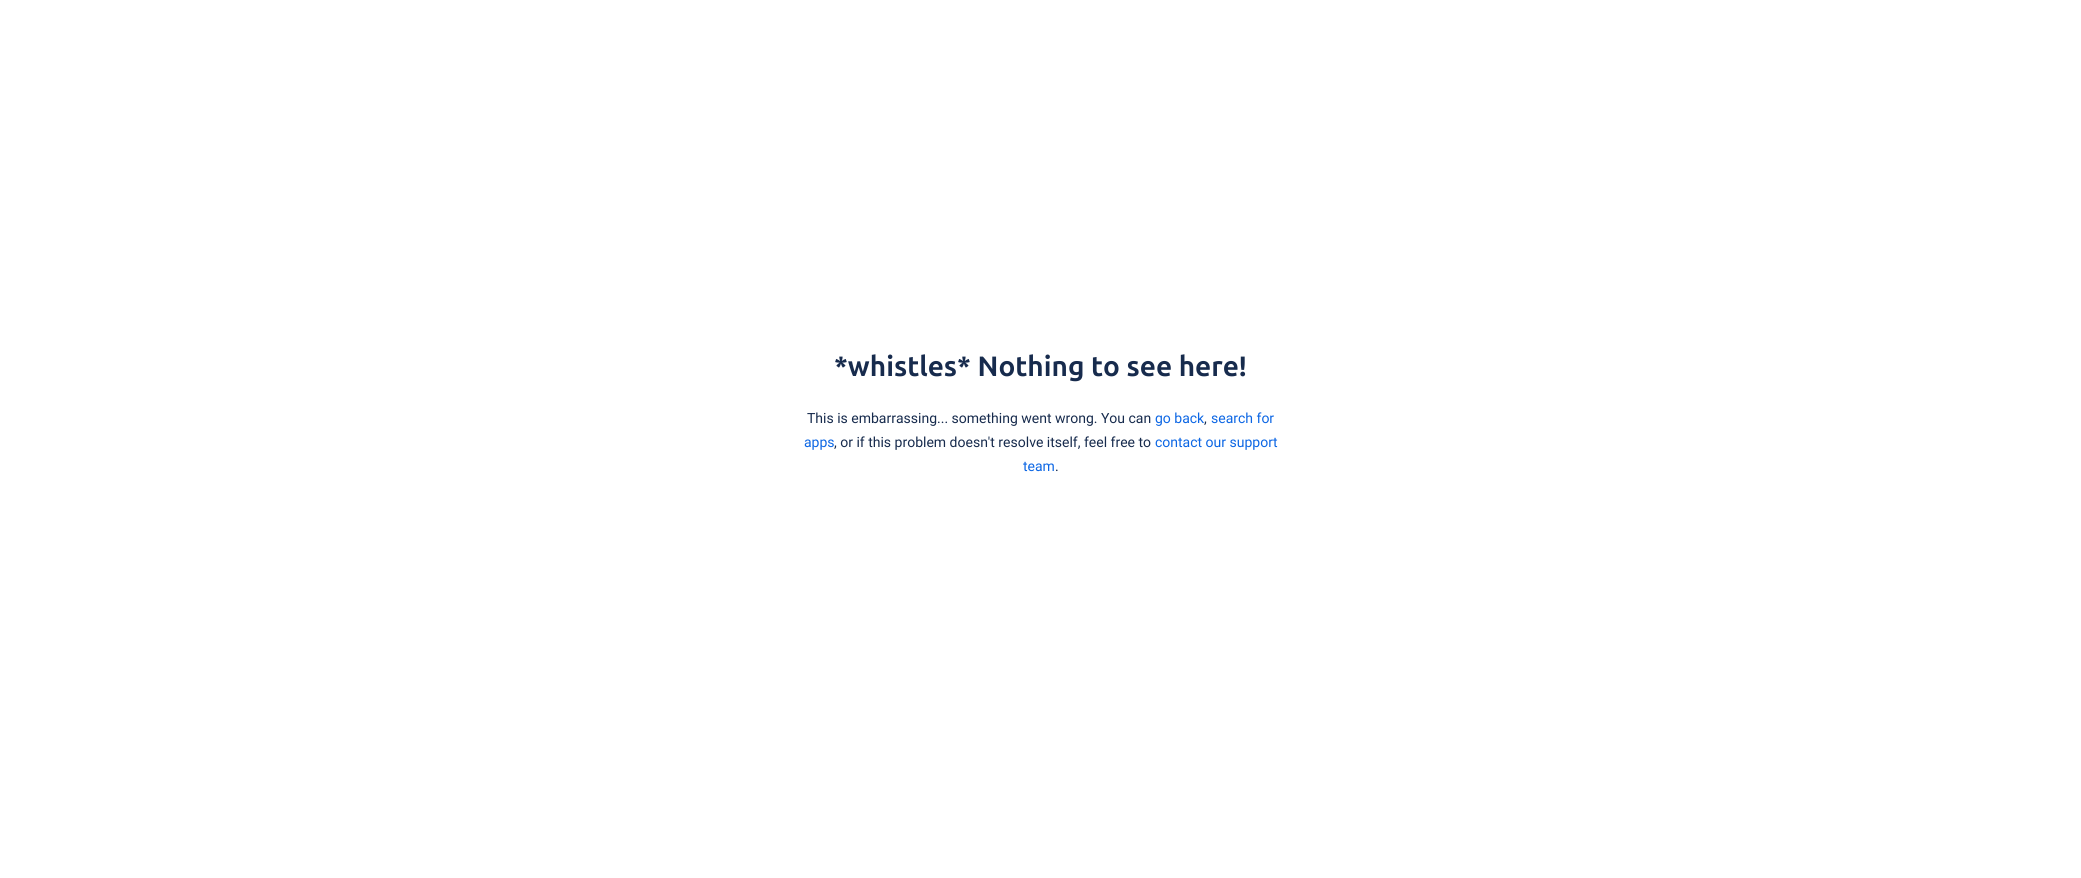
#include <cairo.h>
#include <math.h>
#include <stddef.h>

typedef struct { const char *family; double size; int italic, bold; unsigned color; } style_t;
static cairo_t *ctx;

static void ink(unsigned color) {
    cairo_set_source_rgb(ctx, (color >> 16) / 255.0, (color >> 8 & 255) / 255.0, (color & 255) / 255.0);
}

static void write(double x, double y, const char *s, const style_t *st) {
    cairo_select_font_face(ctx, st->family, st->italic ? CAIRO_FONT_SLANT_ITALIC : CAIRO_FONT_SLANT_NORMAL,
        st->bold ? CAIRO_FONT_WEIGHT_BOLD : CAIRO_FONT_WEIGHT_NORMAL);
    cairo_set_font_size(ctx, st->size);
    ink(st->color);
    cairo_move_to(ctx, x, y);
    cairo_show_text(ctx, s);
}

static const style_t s1 = {"Ubuntu", 28, 0, 1, 0x172b4d};
static const style_t s2 = {"Roboto", 14, 0, 0, 0x172b4d};
static const style_t s3 = {"Roboto", 14, 0, 0, 0x0c66e4};

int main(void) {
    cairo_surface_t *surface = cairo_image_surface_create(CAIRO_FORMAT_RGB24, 2081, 878);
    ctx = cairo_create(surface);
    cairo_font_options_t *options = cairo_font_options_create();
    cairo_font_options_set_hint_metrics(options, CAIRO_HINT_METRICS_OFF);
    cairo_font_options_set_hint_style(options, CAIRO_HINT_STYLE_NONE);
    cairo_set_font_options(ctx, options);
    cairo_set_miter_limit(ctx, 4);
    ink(0xffffff);
    cairo_paint(ctx);
    write(834, 376, "*whistles* Nothing to see here!", &s1);
    write(807, 423, "This is embarrassing... something went wrong. You can", &s2);
    write(1155, 423, "go back", &s3);
    write(1204, 423, ",", &s2);
    write(1211, 423, "search for", &s3);
    write(804, 447, "apps", &s3);
    write(834, 447, ", or if this problem doesn't resolve itself, feel free to", &s2);
    write(1155, 447, "contact our support", &s3);
    write(1023, 471, "team", &s3);
    write(1055, 471, ".", &s2);
    cairo_surface_write_to_png(surface, "screenshot.png");
    cairo_font_options_destroy(options);
    cairo_destroy(ctx);
    cairo_surface_destroy(surface);
    return 0;
}
